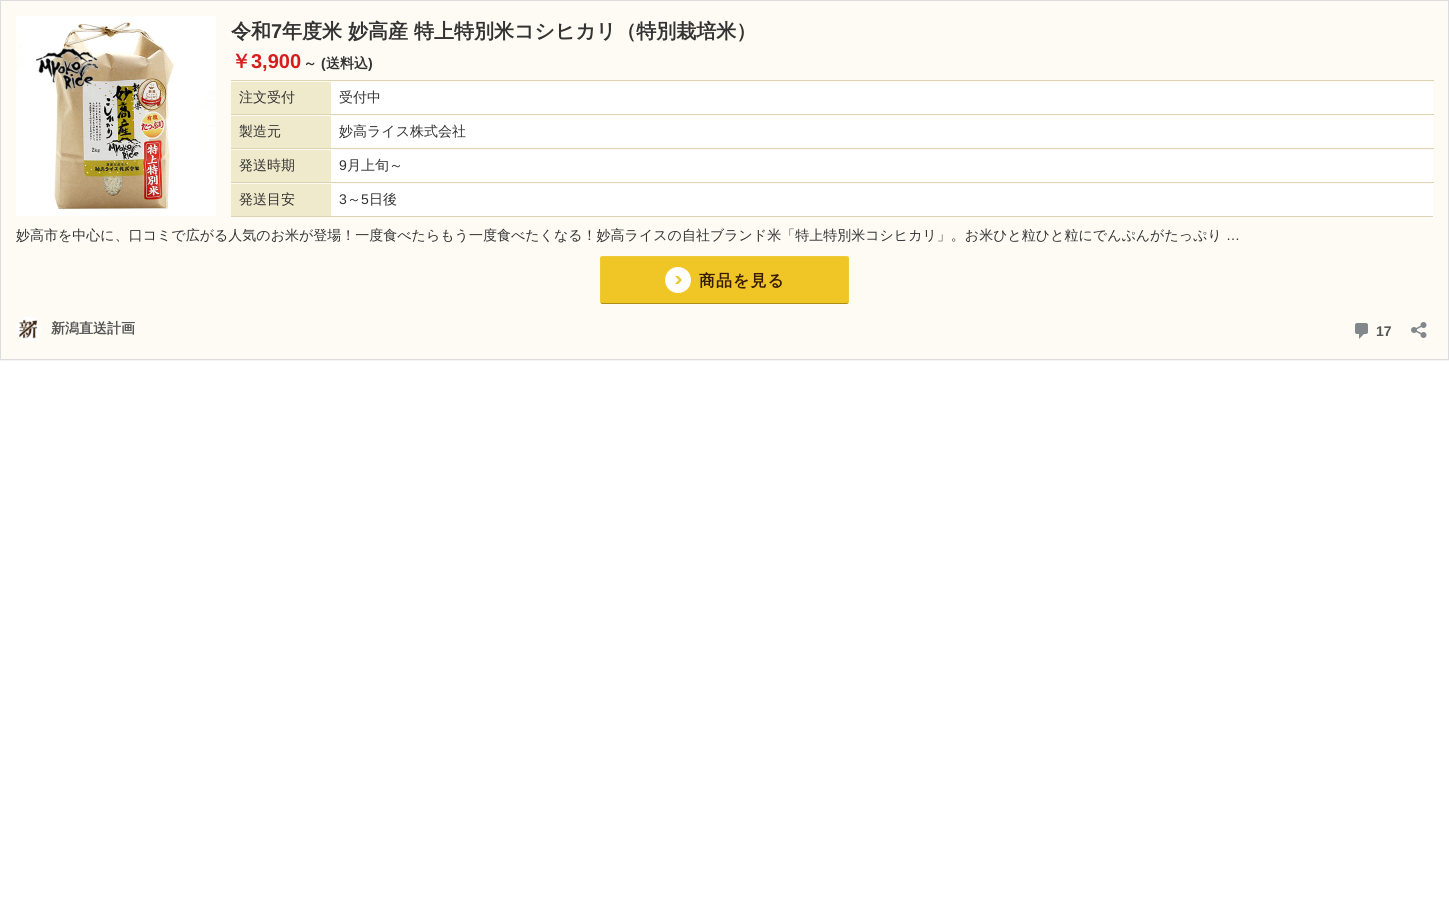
#include <cairo.h>
#include <math.h>
#include <stddef.h>

typedef struct { const char *family; double size; int italic, bold; unsigned color; } style_t;
static cairo_t *ctx;

static void ink(unsigned color) {
    cairo_set_source_rgb(ctx, (color >> 16) / 255.0, (color >> 8 & 255) / 255.0, (color & 255) / 255.0);
}

static void write(double x, double y, const char *s, const style_t *st) {
    cairo_select_font_face(ctx, st->family, st->italic ? CAIRO_FONT_SLANT_ITALIC : CAIRO_FONT_SLANT_NORMAL,
        st->bold ? CAIRO_FONT_WEIGHT_BOLD : CAIRO_FONT_WEIGHT_NORMAL);
    cairo_set_font_size(ctx, st->size);
    ink(st->color);
    cairo_move_to(ctx, x, y);
    cairo_show_text(ctx, s);
}

static void write_spaced(double x, double y, const char *s, double letter, double word) {
    cairo_move_to(ctx, x, y);
    while (*s) {
        char ch[5] = {0};
        int n = 0;
        do ch[n++] = *s++; while ((*s & 0xC0) == 0x80);
        cairo_show_text(ctx, ch);
        cairo_rel_move_to(ctx, letter + word * (*ch == ' '), 0);
    }
}

static void block(double x, double y, double w, double h, unsigned color) {
    ink(color);
    cairo_rectangle(ctx, x, y, w, h);
    cairo_fill(ctx);
}

static void round_path(double x, double y, double w, double h, double r) {
    cairo_new_sub_path(ctx);
    cairo_arc(ctx, x + w - r, y + h - r, r, 0, M_PI / 2);
    cairo_arc(ctx, x + r, y + h - r, r, M_PI / 2, M_PI);
    cairo_arc(ctx, x + r, y + r, r, M_PI, 1.5 * M_PI);
    cairo_arc(ctx, x + w - r, y + r, r, 1.5 * M_PI, 2 * M_PI);
    cairo_close_path(ctx);
}

static void blur_box(double x, double y, double w, double h, double r, double blur, double alpha) {
    cairo_push_group_with_content(ctx, CAIRO_CONTENT_ALPHA);
    cairo_set_operator(ctx, CAIRO_OPERATOR_SOURCE);
    for (int i = 15; i >= -15 && fmin(w, h) + blur * i / 3 > 0; i -= 2) {
        double e = blur * i / 6;
        cairo_set_source_rgba(ctx, 0, 0, 0, alpha * erfc((i - 1) / 8.5) / 2);
        round_path(x - e, y - e, w + 2 * e, h + 2 * e, fmax(0, fmin(r + e + blur * .6, fmin(w, h) / 2 + e)));
        cairo_fill(ctx);
    }
    cairo_pattern_t *soft = cairo_pop_group(ctx);
    cairo_mask(ctx, soft);
    cairo_pattern_destroy(soft);
}

static void paste(const char *path, double x, double y, double w, double h) {
    cairo_surface_t *image = cairo_image_surface_create_from_png(path);
    cairo_save(ctx);
    cairo_set_source_surface(ctx, image, x, y);
    cairo_rectangle(ctx, x, y, w, h);
    cairo_fill(ctx);
    cairo_restore(ctx);
    cairo_surface_destroy(image);
}

static const style_t s1 = {"WenQuanYi Zen Hei", 20, 0, 1, 0x333333};
static const style_t s2 = {"Liberation Sans", 20, 0, 1, 0x333333};
static const style_t s3 = {"WenQuanYi Zen Hei", 20, 0, 1, 0xd81d1d};
static const style_t s4 = {"Liberation Sans", 20, 0, 1, 0xd81d1d};
static const style_t s5 = {"WenQuanYi Zen Hei", 14, 0, 1, 0x333333};
static const style_t s6 = {"Liberation Sans", 14, 0, 1, 0x333333};
static const style_t s7 = {"WenQuanYi Zen Hei Medium", 14, 0, 0, 0x333333};
static const style_t s8 = {"Liberation Sans", 14, 0, 0, 0x333333};
static const style_t s9 = {"WenQuanYi Zen Hei", 14, 0, 1, 0x555555};
static const style_t s10 = {"Liberation Sans", 14, 0, 1, 0x555555};

int main(void) {
    cairo_surface_t *surface = cairo_image_surface_create(CAIRO_FORMAT_RGB24, 1449, 911);
    ctx = cairo_create(surface);
    cairo_font_options_t *options = cairo_font_options_create();
    cairo_font_options_set_hint_metrics(options, CAIRO_HINT_METRICS_OFF);
    cairo_font_options_set_hint_style(options, CAIRO_HINT_STYLE_NONE);
    cairo_set_font_options(ctx, options);
    cairo_set_miter_limit(ctx, 4);
    ink(0xffffff);
    cairo_paint(ctx);
    ink(0x000000);
    blur_box(0, 1, 1449, 360, 0, 0.5, 0.05);
    ink(0xfdfbf4);
    cairo_rectangle(ctx, 0.5, 0.5, 1448, 359);
    cairo_fill_preserve(ctx);
    ink(0xdcdcde);
    cairo_set_line_width(ctx, 1);
    cairo_stroke(ctx);
    paste("pic1.png", 16, 16, 200, 200);
    write(231, 38, "令和", &s1);
    write(271, 38, "7", &s2);
    write(282, 38, "年度米 妙高産 特上特別米コシヒカリ（特別栽培米）", &s1);
    write(231, 68, "￥", &s3);
    write(251, 68, "3,900", &s4);
    write(303, 68, "～", &s5);
    write(321, 68, "(", &s6);
    write(326, 68, "送料込", &s5);
    write(368, 68, ")", &s6);
    block(231, 216, 1202, 1, 0xdcd4b2);
    block(231, 82, 100, 32, 0xf0eacc);
    write(239, 102, "注文受付", &s7);
    block(331, 82, 1102, 32, 0xffffff);
    block(231, 80, 1203, 1, 0xdcd4b2);
    write(339, 102, "受付中", &s7);
    block(231, 116, 100, 32, 0xf0eacc);
    write(239, 136, "製造元", &s7);
    block(331, 116, 1102, 32, 0xffffff);
    block(231, 114, 1203, 1, 0xdcd4b2);
    write(339, 136, "妙高ライス株式会社", &s7);
    block(231, 150, 100, 32, 0xf0eacc);
    write(239, 170, "発送時期", &s7);
    block(331, 150, 1102, 32, 0xffffff);
    block(231, 148, 1203, 1, 0xdcd4b2);
    write(339, 170, "9", &s8);
    write(347, 170, "月上旬～", &s7);
    block(231, 184, 100, 32, 0xf0eacc);
    write(239, 204, "発送目安", &s7);
    block(331, 184, 1102, 32, 0xffffff);
    block(231, 182, 1203, 1, 0xdcd4b2);
    write(339, 204, "3", &s8);
    write(347, 204, "～", &s7);
    write(361, 204, "5", &s8);
    write(369, 204, "日後", &s7);
    write(16, 240, "妙高市を中心に、口コミで広がる人気のお米が登場！一度食べたらもう一度食べたくなる！妙高ライスの自社ブランド米「特上特別米コシヒカリ」。お米ひと粒ひと粒にでんぷんがたっぷり", &s7);
    write(1226, 240, "…", &s8);
    ink(0xf0c627);
    round_path(600, 256, 249, 48, 3);
    cairo_fill(ctx);
    cairo_new_path(ctx);
    cairo_move_to(ctx, 848, 303);
    cairo_line_to(ctx, 846, 303.5);
    cairo_line_to(ctx, 603, 303.5);
    cairo_line_to(ctx, 601, 303);
    ink(0xad8d14);
    cairo_stroke(ctx);
    cairo_new_path(ctx);
    cairo_move_to(ctx, 601, 303);
    cairo_line_to(ctx, 600.5, 301);
    cairo_line_to(ctx, 600.5, 259);
    cairo_line_to(ctx, 601, 257);
    cairo_line_to(ctx, 603, 256.5);
    cairo_line_to(ctx, 846, 256.5);
    cairo_line_to(ctx, 848, 257);
    cairo_line_to(ctx, 848.5, 259);
    cairo_line_to(ctx, 848.5, 301);
    cairo_line_to(ctx, 848, 303);
    ink(0xeecc38);
    cairo_stroke(ctx);
    paste("pic2.png", 665, 267, 26, 26);
    cairo_select_font_face(ctx, "WenQuanYi Zen Hei", CAIRO_FONT_SLANT_NORMAL, CAIRO_FONT_WEIGHT_BOLD);
    cairo_set_font_size(ctx, 16);
    ink(0x381c02);
    write_spaced(699, 286, "商品を見る", 1, 0);
    paste("pic3.png", 16, 316, 25, 26);
    write(51, 333, "新潟直送計画", &s9);
    paste("pic4.png", 1355, 323, 13, 16);
    write(1376, 336, "17", &s10);
    paste("pic5.png", 1411, 322, 16, 16);
    cairo_surface_write_to_png(surface, "screenshot.png");
    cairo_font_options_destroy(options);
    cairo_destroy(ctx);
    cairo_surface_destroy(surface);
    return 0;
}
